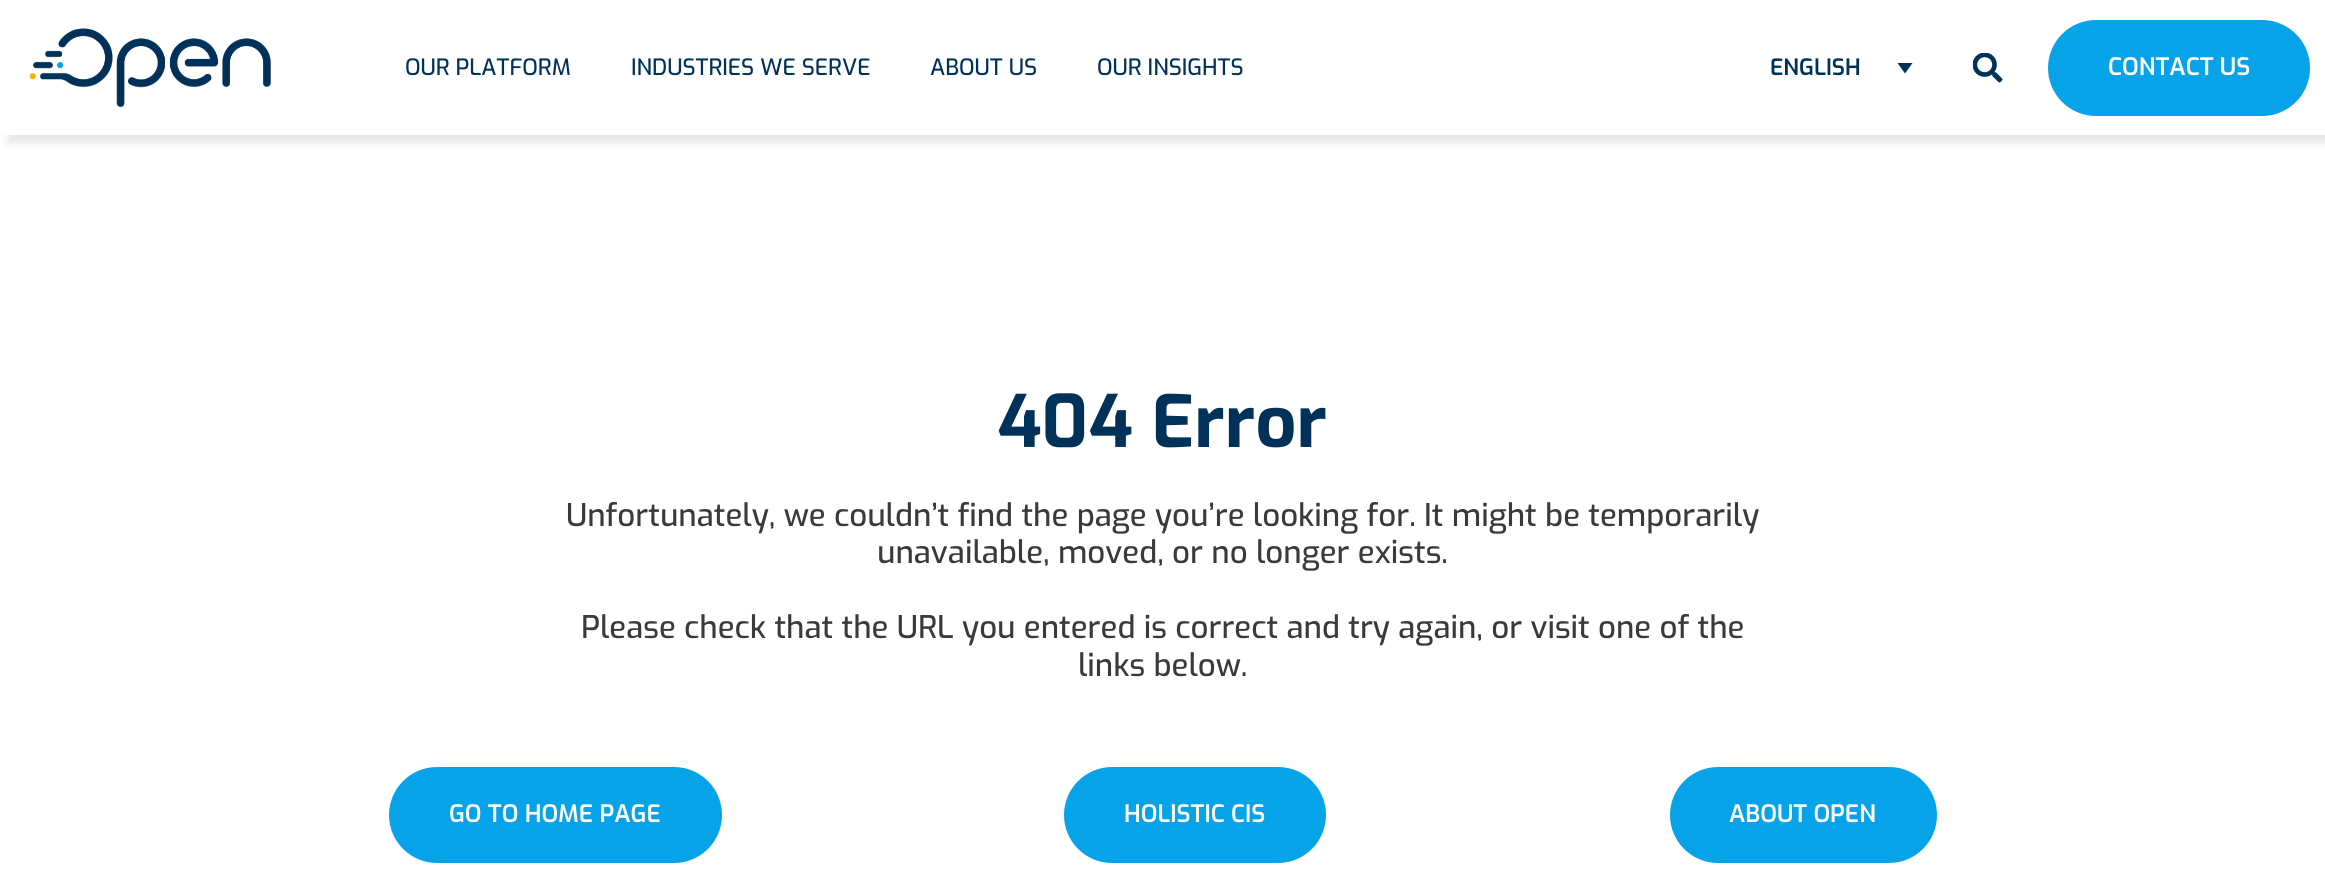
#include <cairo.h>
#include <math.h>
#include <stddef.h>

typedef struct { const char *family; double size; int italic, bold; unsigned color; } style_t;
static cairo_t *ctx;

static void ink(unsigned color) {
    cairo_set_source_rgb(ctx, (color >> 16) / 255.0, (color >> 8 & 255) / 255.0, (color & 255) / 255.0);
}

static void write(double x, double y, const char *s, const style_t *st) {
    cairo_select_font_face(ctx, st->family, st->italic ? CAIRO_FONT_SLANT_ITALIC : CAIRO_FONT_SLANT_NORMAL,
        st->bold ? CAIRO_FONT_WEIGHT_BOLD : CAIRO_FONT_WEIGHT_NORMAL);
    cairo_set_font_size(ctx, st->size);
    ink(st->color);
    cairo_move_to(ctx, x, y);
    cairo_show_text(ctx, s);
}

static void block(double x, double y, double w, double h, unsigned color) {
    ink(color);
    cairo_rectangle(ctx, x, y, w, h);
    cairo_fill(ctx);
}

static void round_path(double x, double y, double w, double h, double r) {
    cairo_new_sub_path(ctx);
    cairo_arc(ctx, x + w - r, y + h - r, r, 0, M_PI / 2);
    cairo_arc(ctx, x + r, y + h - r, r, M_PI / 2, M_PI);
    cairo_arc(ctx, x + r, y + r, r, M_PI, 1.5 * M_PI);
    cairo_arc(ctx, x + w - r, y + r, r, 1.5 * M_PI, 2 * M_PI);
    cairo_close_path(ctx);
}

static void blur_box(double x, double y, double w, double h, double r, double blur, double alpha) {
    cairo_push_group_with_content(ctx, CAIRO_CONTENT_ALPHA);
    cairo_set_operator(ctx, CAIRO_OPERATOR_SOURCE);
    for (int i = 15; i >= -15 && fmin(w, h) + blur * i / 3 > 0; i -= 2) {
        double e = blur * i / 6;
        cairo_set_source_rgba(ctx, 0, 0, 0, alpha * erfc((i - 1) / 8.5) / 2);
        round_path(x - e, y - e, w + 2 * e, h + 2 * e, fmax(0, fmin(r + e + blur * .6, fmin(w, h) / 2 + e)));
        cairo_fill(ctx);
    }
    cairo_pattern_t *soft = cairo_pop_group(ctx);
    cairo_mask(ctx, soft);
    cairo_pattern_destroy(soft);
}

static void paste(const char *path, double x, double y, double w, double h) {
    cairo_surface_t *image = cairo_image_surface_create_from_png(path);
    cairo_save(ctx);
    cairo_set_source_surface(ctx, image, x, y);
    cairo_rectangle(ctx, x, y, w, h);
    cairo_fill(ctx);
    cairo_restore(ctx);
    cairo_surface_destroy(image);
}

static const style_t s1 = {"Exo Medium", 22.5, 0, 0, 0x003259};
static const style_t s2 = {"Exo SemiBold", 22.5, 0, 0, 0x003259};
static const style_t s3 = {"Exo SemiBold", 24, 0, 0, 0xffffff};
static const style_t s4 = {"Exo", 72, 0, 1, 0x003259};
static const style_t s5 = {"Exo Medium", 31.2, 0, 0, 0x3a3a3a};

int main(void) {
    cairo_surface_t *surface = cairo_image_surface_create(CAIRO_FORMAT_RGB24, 2325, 876);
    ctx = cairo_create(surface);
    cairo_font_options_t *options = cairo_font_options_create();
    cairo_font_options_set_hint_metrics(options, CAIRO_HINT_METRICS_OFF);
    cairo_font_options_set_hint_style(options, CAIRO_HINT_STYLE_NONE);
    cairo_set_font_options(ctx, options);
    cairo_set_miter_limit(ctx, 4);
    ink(0xffffff);
    cairo_paint(ctx);
    ink(0x000000);
    blur_box(8, 8, 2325, 135, 0, 4, 0.1);
    block(3, 3, 2322, 132, 0xffffff);
    paste("pic1.png", 29, 28, 242, 80);
    write(405, 75, "OUR PLATFORM", &s1);
    write(631, 75, "INDUSTRIES WE SERVE", &s1);
    write(930, 75, "ABOUT US", &s1);
    write(1097, 75, "OUR INSIGHTS", &s1);
    write(1770, 75, "ENGLISH", &s2);
    cairo_new_path(ctx);
    cairo_move_to(ctx, 1897.5, 63);
    cairo_line_to(ctx, 1912.5, 63);
    cairo_line_to(ctx, 1905, 73.5);
    cairo_close_path(ctx);
    cairo_fill(ctx);
    paste("pic2.png", 1973, 53, 30, 30);
    ink(0x07a3e8);
    round_path(2048, 20, 262, 96, 48);
    cairo_fill(ctx);
    write(2108, 75, "CONTACT US", &s3);
    write(997, 447, "404 Error", &s4);
    write(566, 526, "Unfortunately, we couldn’t find the page you’re looking for. It might be temporarily", &s5);
    write(877, 563, "unavailable, moved, or no longer exists.", &s5);
    write(581, 638, "Please check that the URL you entered is correct and try again, or visit one of the", &s5);
    write(1078, 676, "links below.", &s5);
    ink(0x07a3e8);
    round_path(389, 767, 333, 96, 48);
    cairo_fill(ctx);
    write(449, 822, "GO TO HOME PAGE", &s3);
    ink(0x07a3e8);
    round_path(1064, 767, 262, 96, 48);
    cairo_fill(ctx);
    write(1124, 822, "HOLISTIC CIS", &s3);
    ink(0x07a3e8);
    round_path(1670, 767, 267, 96, 48);
    cairo_fill(ctx);
    write(1729, 822, "ABOUT OPEN", &s3);
    cairo_surface_write_to_png(surface, "screenshot.png");
    cairo_font_options_destroy(options);
    cairo_destroy(ctx);
    cairo_surface_destroy(surface);
    return 0;
}
